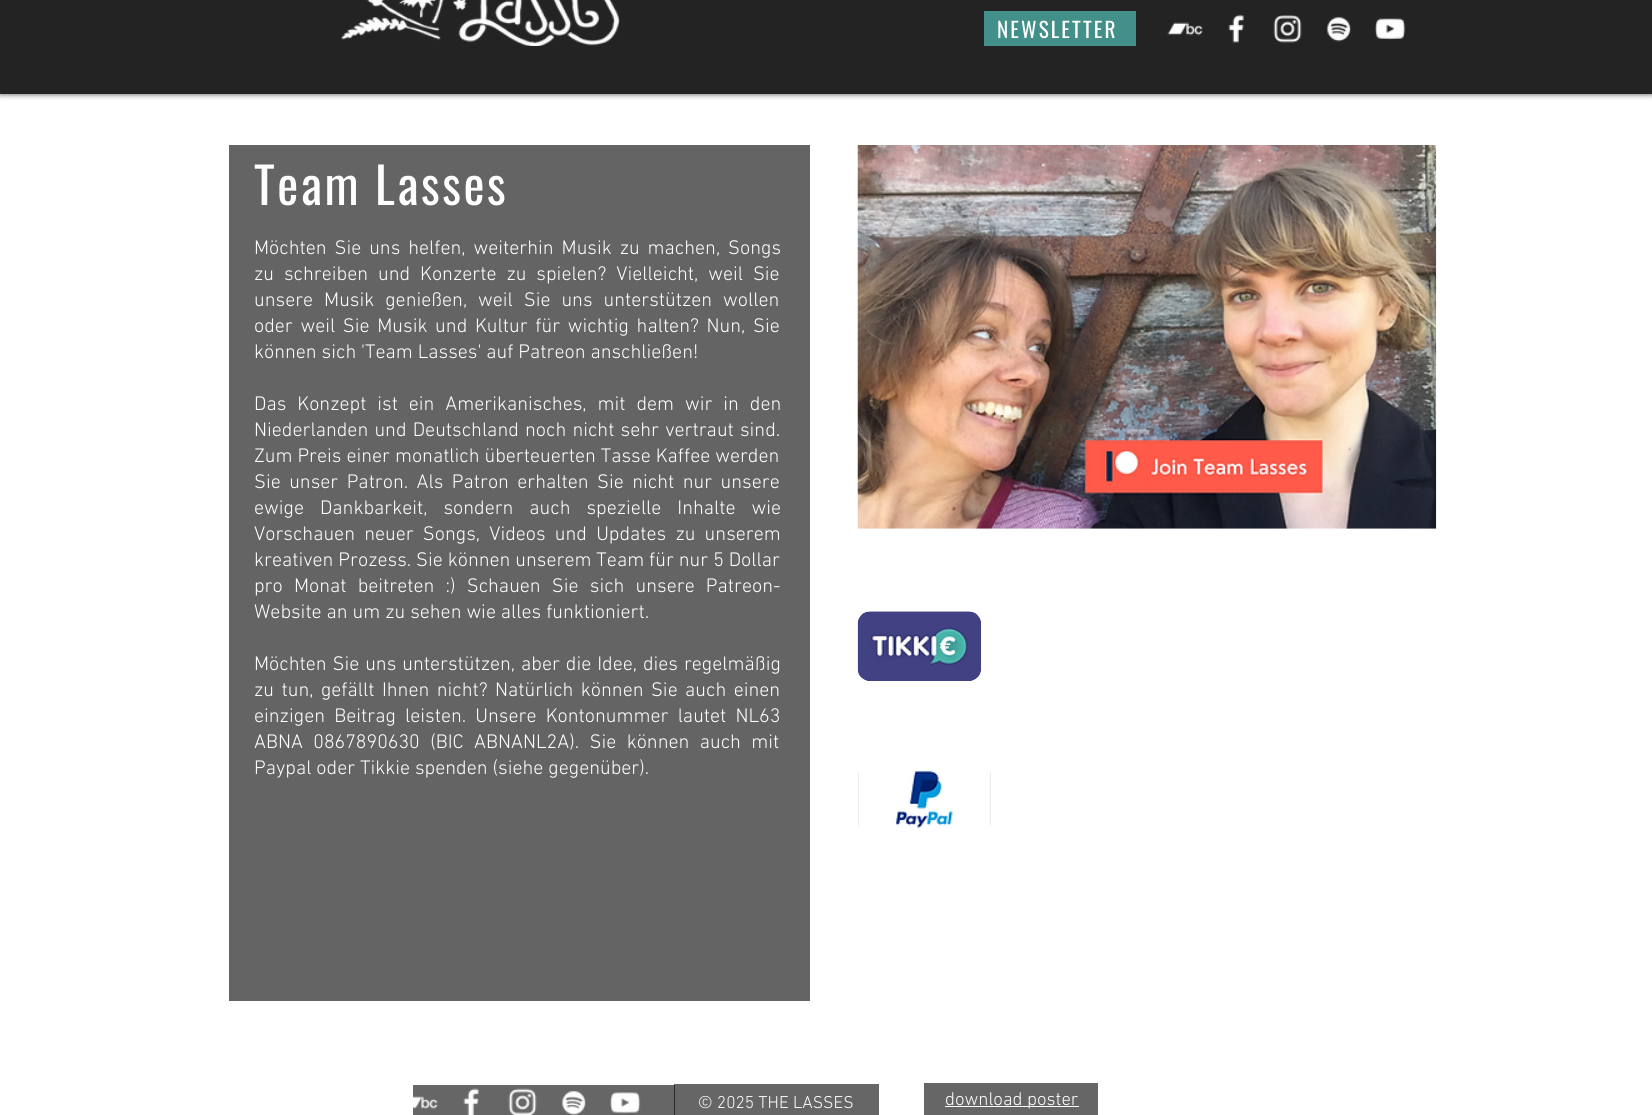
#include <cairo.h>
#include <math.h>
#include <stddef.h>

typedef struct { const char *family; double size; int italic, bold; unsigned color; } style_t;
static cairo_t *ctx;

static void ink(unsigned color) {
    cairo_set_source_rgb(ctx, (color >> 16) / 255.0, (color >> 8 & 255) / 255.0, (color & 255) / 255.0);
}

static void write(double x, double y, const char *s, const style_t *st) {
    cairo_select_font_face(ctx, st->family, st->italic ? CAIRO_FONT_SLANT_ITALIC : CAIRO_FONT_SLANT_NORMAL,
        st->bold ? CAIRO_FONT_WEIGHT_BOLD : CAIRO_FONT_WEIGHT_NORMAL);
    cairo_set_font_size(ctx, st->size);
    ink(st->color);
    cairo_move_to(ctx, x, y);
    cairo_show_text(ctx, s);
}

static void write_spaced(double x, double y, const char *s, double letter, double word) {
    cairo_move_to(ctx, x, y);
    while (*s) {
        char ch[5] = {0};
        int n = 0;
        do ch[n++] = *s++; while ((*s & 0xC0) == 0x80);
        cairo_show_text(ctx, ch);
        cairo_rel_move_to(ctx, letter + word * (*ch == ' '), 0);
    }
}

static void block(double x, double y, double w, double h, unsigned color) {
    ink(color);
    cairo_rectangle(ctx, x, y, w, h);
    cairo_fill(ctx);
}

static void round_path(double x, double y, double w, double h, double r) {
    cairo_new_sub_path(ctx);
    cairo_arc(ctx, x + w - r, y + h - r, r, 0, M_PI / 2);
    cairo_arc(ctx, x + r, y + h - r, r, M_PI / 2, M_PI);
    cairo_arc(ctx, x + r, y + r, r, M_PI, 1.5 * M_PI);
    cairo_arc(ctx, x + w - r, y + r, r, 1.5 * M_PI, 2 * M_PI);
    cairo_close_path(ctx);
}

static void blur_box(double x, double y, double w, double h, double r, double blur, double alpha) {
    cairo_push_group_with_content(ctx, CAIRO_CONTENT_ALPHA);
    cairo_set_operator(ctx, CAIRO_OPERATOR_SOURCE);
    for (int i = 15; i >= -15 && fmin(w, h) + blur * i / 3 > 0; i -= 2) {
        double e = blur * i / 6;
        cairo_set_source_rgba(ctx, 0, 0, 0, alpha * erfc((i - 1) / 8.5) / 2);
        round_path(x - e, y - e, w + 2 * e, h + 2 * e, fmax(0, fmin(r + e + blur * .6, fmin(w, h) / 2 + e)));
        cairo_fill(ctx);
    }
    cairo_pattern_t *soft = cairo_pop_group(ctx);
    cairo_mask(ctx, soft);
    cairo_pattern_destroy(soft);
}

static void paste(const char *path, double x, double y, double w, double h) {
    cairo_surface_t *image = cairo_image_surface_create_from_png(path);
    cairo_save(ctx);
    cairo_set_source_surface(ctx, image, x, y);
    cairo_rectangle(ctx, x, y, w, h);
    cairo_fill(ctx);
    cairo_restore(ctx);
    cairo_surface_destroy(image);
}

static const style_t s1 = {"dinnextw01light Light", 20, 0, 0, 0xffffff};
static const style_t s2 = {"dinnextw01light Light", 17.5, 0, 0, 0xffffff};
static const style_t s3 = {"dinnextw01light Light", 18.75, 0, 0, 0xffffff};

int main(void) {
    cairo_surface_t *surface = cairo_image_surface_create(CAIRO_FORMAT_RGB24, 1652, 1115);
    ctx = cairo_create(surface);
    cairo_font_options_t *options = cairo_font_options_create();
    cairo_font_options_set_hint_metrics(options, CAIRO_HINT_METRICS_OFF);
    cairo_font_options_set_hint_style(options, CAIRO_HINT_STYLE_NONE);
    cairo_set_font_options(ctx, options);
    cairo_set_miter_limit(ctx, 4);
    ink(0xffffff);
    cairo_paint(ctx);
    block(674, 1084, 205, 31, 0x666666);
    cairo_save(ctx);
    cairo_set_fill_rule(ctx, CAIRO_FILL_RULE_EVEN_ODD);
    cairo_new_path(ctx);
    cairo_move_to(ctx, 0, 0);
    cairo_line_to(ctx, 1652, 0);
    cairo_line_to(ctx, 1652, 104);
    cairo_line_to(ctx, 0, 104);
    cairo_close_path(ctx);
    cairo_move_to(ctx, 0, -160);
    cairo_line_to(ctx, 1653, -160);
    cairo_line_to(ctx, 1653, 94);
    cairo_line_to(ctx, 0, 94);
    cairo_close_path(ctx);
    cairo_clip(ctx);
    ink(0x000000);
    blur_box(0, -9, 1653, 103, 0, 3, 0.7);
    cairo_restore(ctx);
    cairo_set_source_rgba(ctx, 0, 0, 0, 0.86);
    cairo_rectangle(ctx, 0, 0, 1652, 94);
    cairo_fill(ctx);
    paste("pic1.png", 341, 0, 279, 46);
    block(984, 11, 152, 35, 0x438f89);
    cairo_select_font_face(ctx, "Oswald", CAIRO_FONT_SLANT_NORMAL, CAIRO_FONT_WEIGHT_NORMAL);
    cairo_set_font_size(ctx, 21.25);
    ink(0xffffff);
    write_spaced(997, 38, "NEWSLETTER", 2.1, 0);
    paste("pic2.png", 1167, 22, 36, 14);
    paste("pic3.png", 1228, 14, 16, 29);
    paste("pic4.png", 1273, 15, 29, 28);
    paste("pic5.png", 1326, 16, 25, 26);
    paste("pic6.png", 1375, 18, 31, 22);
    block(229, 145, 581, 856, 0x646464);
    cairo_set_font_size(ctx, 50);
    ink(0xffffff);
    write_spaced(254, 205, "Team Lasses", 2.5, 0);
    paste("pic7.png", 857, 145, 580, 384);
    cairo_select_font_face(ctx, "dinnextw01light Light", CAIRO_FONT_SLANT_NORMAL, CAIRO_FONT_WEIGHT_NORMAL);
    cairo_set_font_size(ctx, 20);
    write_spaced(254, 254, "Möchten Sie uns helfen, weiterhin Musik zu machen, Songs", 0, 3);
    write_spaced(254, 280, "zu schreiben und Konzerte zu spielen? Vielleicht, weil Sie", 0, 5);
    write_spaced(254, 306, "unsere Musik genießen, weil Sie uns unterstützen wollen", 0, 6);
    write_spaced(254, 332, "oder weil Sie Musik und Kultur für wichtig halten? Nun, Sie", 0, 2.75);
    write(254, 358, "können sich 'Team Lasses' auf Patreon anschließen!", &s1);
    write_spaced(254, 410, "Das Konzept ist ein Amerikanisches, mit dem wir in den", 0, 6);
    write_spaced(254, 436, "Niederlanden und Deutschland noch nicht sehr vertraut sind.", 0, 1.25);
    write(254, 462, "Zum Preis einer monatlich überteuerten Tasse Kaffee werden", &s1);
    write_spaced(254, 488, "Sie unser Patron. Als Patron erhalten Sie nicht nur unsere", 0, 3.5);
    write_spaced(254, 514, "ewige Dankbarkeit, sondern auch spezielle Inhalte wie", 0, 11);
    write_spaced(254, 540, "Vorschauen neuer Songs, Videos und Updates zu unserem", 0, 4.25);
    write(254, 566, "kreativen Prozess. Sie können unserem Team für nur 5 Dollar", &s1);
    write_spaced(254, 592, "pro Monat beitreten :) Schauen Sie sich unsere Patreon-", 0, 6.25);
    write(254, 618, "Website an um zu sehen wie alles funktioniert.", &s1);
    write_spaced(254, 670, "Möchten Sie uns unterstützen, aber die Idee, dies regelmäßig", 0, 1);
    write_spaced(254, 696, "zu tun, gefällt Ihnen nicht? Natürlich können Sie auch einen", 0, 2.5);
    write_spaced(254, 722, "einzigen Beitrag leisten. Unsere Kontonummer lautet NL63", 0, 4.25);
    write_spaced(254, 748, "ABNA 0867890630 (BIC ABNANL2A). Sie können auch mit", 0, 5.5);
    write(254, 774, "Paypal oder Tikkie spenden (siehe gegenüber).", &s1);
    paste("pic8.png", 857, 611, 124, 70);
    paste("pic9.png", 858, 771, 133, 57);
    block(413, 1085, 261, 30, 0x666666);
    block(674, 1085, 1, 30, 0x292929);
    paste("pic10.png", 413, 1096, 25, 13);
    paste("pic11.png", 463, 1088, 16, 27);
    paste("pic12.png", 508, 1088, 29, 27);
    paste("pic13.png", 561, 1090, 25, 25);
    paste("pic14.png", 610, 1092, 31, 22);
    write(698, 1108, "© 2025 THE LASSES", &s2);
    block(924, 1083, 174, 32, 0x666666);
    block(945, 1106, 134, 1, 0xffffff);
    write(945, 1105, "download poster", &s3);
    cairo_surface_write_to_png(surface, "screenshot.png");
    cairo_font_options_destroy(options);
    cairo_destroy(ctx);
    cairo_surface_destroy(surface);
    return 0;
}
